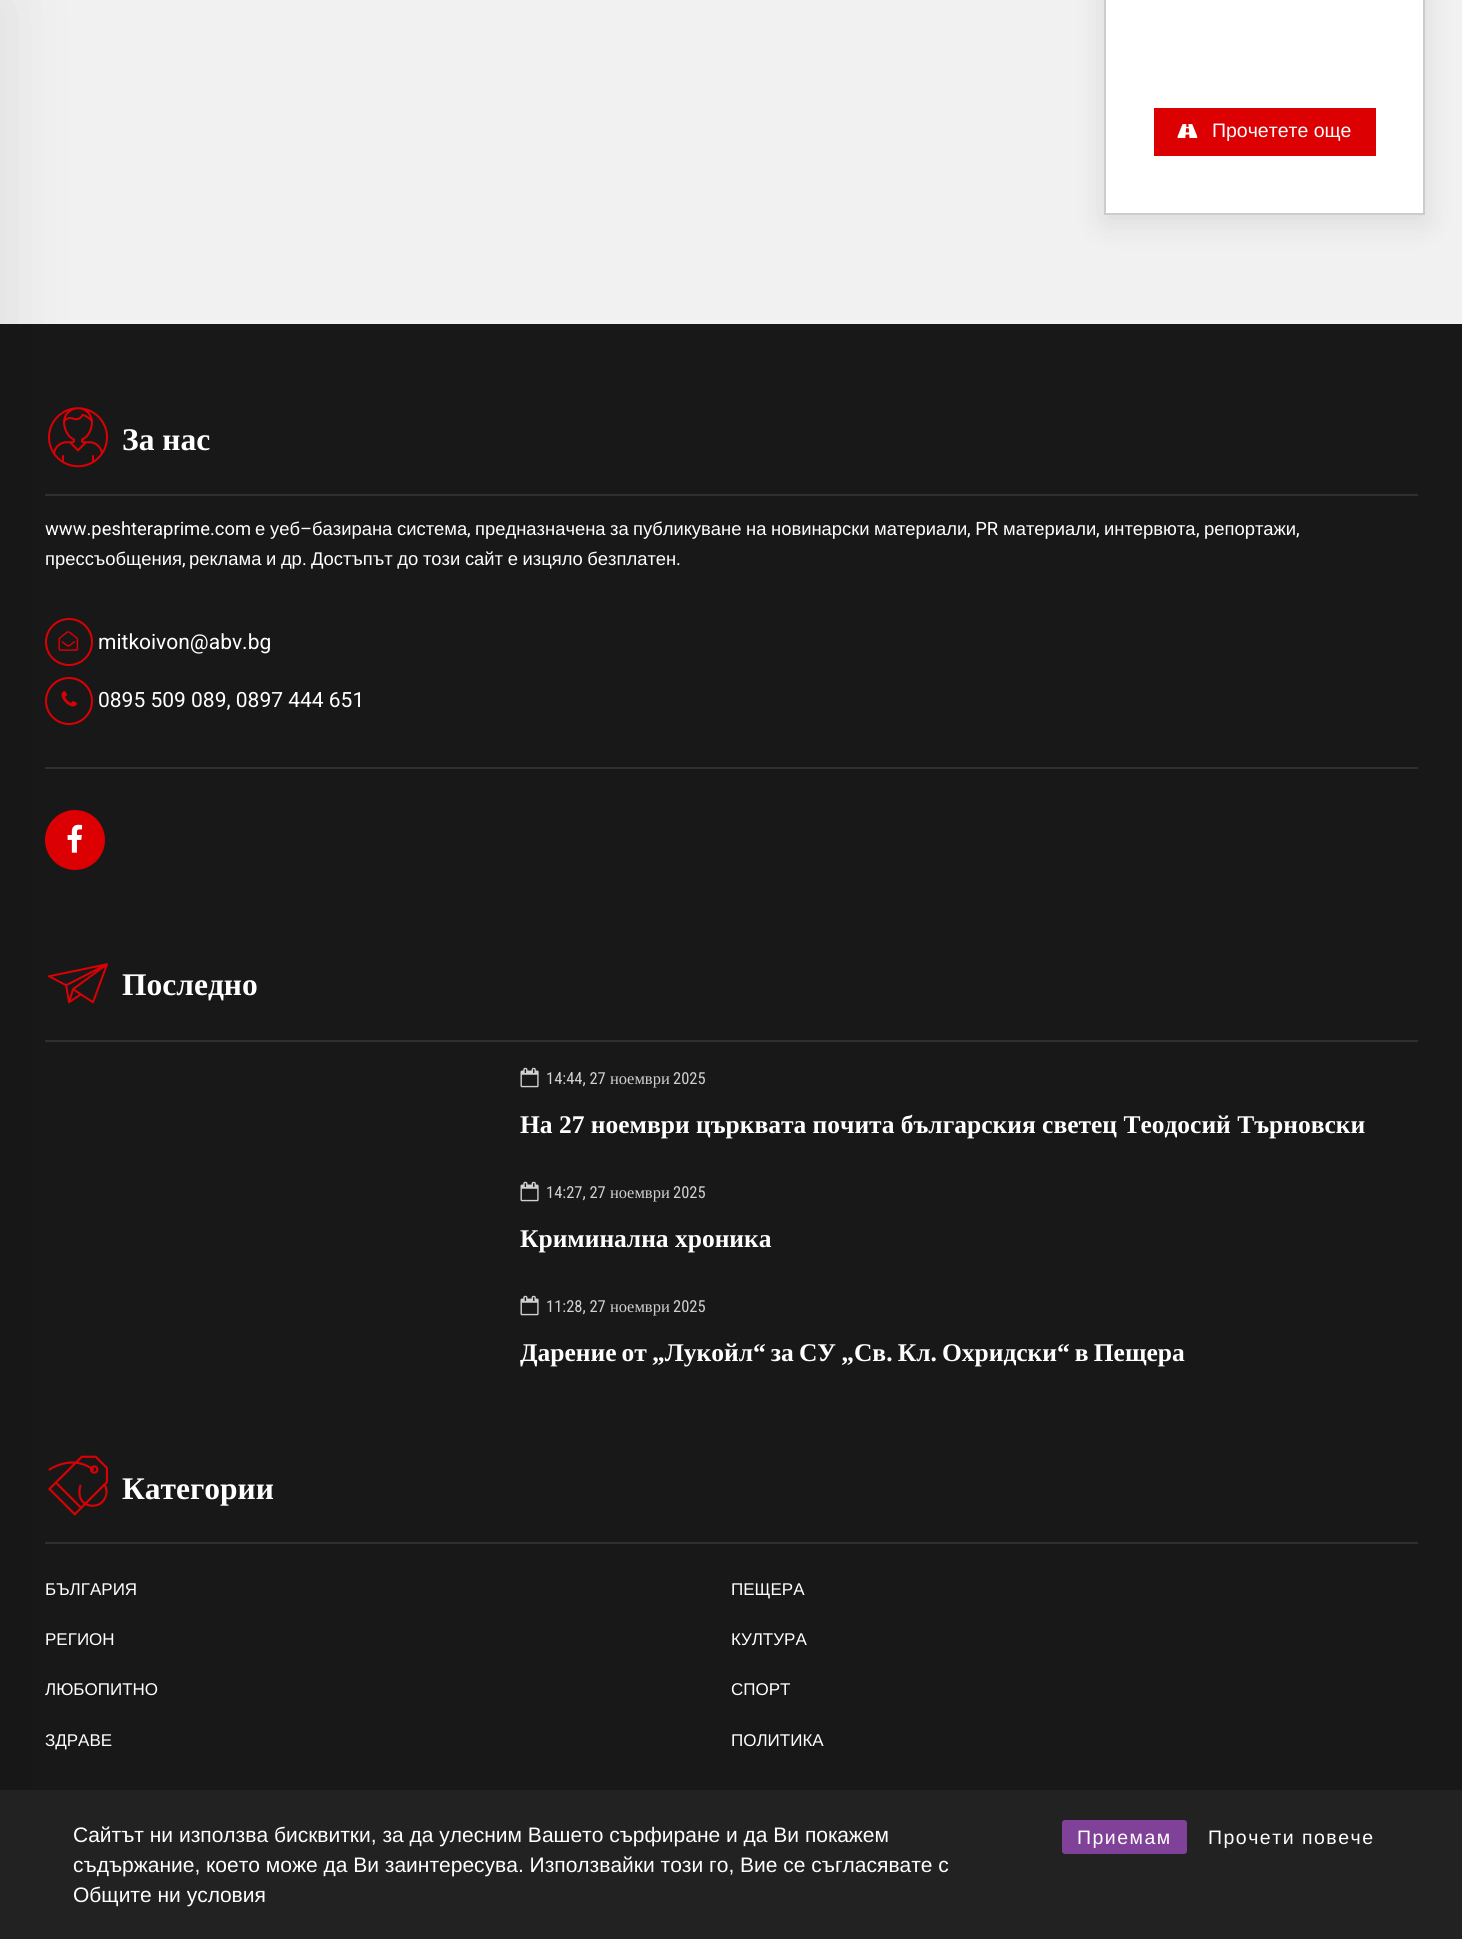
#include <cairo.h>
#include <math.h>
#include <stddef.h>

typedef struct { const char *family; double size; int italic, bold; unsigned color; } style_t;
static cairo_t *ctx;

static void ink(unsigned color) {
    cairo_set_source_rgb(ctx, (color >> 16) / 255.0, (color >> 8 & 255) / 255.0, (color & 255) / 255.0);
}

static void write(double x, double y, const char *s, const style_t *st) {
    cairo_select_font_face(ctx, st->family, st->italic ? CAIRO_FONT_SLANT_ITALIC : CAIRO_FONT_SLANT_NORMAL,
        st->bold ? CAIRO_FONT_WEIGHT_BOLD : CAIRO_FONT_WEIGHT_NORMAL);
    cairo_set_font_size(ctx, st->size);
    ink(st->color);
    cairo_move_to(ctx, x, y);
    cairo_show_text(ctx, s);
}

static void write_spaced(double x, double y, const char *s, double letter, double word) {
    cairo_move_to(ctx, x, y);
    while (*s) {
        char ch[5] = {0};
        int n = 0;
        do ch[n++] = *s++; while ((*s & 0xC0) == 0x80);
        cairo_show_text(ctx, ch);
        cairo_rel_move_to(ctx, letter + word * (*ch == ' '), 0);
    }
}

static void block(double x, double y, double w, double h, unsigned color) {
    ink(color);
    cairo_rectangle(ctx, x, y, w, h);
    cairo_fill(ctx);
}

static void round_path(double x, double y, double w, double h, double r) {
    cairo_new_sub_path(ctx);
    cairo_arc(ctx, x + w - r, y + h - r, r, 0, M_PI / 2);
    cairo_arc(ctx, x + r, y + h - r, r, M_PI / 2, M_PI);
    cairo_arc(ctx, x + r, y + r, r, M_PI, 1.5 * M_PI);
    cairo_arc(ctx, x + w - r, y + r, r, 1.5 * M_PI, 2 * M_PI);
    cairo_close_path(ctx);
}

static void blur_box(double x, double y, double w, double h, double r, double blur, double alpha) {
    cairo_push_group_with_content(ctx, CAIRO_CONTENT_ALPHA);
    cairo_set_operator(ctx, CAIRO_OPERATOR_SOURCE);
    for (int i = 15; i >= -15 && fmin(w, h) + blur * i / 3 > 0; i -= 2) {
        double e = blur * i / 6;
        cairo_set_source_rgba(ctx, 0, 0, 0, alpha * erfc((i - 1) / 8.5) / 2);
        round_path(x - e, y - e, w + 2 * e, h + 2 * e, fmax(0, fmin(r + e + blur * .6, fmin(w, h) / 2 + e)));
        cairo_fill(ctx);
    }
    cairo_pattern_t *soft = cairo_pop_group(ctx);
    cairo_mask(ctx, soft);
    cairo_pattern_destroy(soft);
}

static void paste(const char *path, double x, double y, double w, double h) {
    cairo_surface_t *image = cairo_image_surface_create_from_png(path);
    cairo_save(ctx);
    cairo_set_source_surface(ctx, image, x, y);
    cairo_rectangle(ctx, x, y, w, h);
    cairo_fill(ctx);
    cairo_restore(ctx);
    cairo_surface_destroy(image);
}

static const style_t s1 = {"Liberation Sans", 19.5, 0, 0, 0xffffff};
static const style_t s2 = {"Liberation Serif", 31.5, 0, 1, 0xffffff};
static const style_t s3 = {"Roboto", 18.4, 0, 0, 0xffffff};
static const style_t s4 = {"Liberation Sans", 18.4, 0, 0, 0xffffff};
static const style_t s5 = {"Roboto", 21, 0, 0, 0xffffff};
static const style_t s6 = {"Roboto Condensed", 16.5, 0, 0, 0xd1d1d1};
static const style_t s7 = {"Liberation Serif", 16.5, 0, 0, 0xd1d1d1};
static const style_t s8 = {"Liberation Serif", 25.5, 0, 1, 0xffffff};
static const style_t s9 = {"Liberation Sans", 17, 0, 0, 0xffffff};
static const style_t s10 = {"Liberation Sans", 21, 0, 0, 0xffffff};

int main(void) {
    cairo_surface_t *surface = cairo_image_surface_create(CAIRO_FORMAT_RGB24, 1462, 1939);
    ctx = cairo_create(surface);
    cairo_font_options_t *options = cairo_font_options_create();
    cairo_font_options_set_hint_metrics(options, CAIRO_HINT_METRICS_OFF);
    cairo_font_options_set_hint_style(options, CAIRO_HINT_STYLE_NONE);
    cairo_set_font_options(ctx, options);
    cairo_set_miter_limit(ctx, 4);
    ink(0xf1f1f1);
    cairo_paint(ctx);
    block(0, 324, 1462, 1466, 0x181818);
    paste("pic2.png", 48, 407, 60, 61);
    block(45, 494, 1373, 2, 0x2f2f2f);
    cairo_arc(ctx, 69, 642, 23, 0, 2 * M_PI);
    ink(0xdc0003);
    cairo_stroke(ctx);
    paste("pic3.png", 58, 631, 21, 20);
    cairo_arc(ctx, 69, 701, 23, 0, 2 * M_PI);
    cairo_stroke(ctx);
    paste("pic4.png", 61, 691, 16, 16);
    block(45, 767, 1373, 2, 0x2f2f2f);
    ink(0xdc0003);
    cairo_arc(ctx, 75, 840, 30, 0, 2 * M_PI);
    cairo_fill(ctx);
    paste("pic5.png", 67, 824, 16, 29);
    paste("pic6.png", 48, 963, 60, 41);
    block(45, 1040, 1373, 2, 0x2f2f2f);
    paste("pic8.png", 48, 1455, 60, 61);
    block(45, 1542, 1373, 2, 0x2f2f2f);
    ink(0x000000);
    blur_box(-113, 0, 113, 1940, 0, 37.5, 0.1);
    blur_box(1104, -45, 321, 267, 0, 15, 0.1);
    ink(0xffffff);
    cairo_rectangle(ctx, 1105, -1, 319, 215);
    cairo_fill_preserve(ctx);
    ink(0xcccccc);
    cairo_stroke(ctx);
    block(1154, 108, 222, 48, 0xdc0003);
    paste("pic1.png", 1177, 124, 21, 14);
    write(1212, 137, "Прочетете още", &s1);
    write(122, 450, "За нас", &s2);
    write(45, 535, "www.peshteraprime.com", &s3);
    write(255, 535, "е", &s4);
    write(270, 535, "уеб", &s4);
    write(300, 535, "–", &s3);
    write(312, 535, "базирана", &s4);
    write(397, 535, "система", &s4);
    write(475, 535, "предназначена", &s4);
    write(610, 535, "за", &s4);
    write(633, 535, "публикуване", &s4);
    write(746, 535, "на", &s4);
    write(771, 535, "новинарски", &s4);
    write(874, 535, "материали", &s4);
    write(967, 535, ", PR", &s3);
    write(1003, 535, "материали", &s4);
    write(1104, 535, "интервюта", &s4);
    write(1204, 535, "репортажи", &s4);
    write(467, 535, ",", &s3);
    write(1096, 535, ",", &s3);
    write(1196, 535, ",", &s3);
    write(1296, 535, ",", &s3);
    write(45, 565, "прессъобщения", &s4);
    write(182, 565, ",", &s3);
    cairo_select_font_face(ctx, "Liberation Sans", CAIRO_FONT_SLANT_NORMAL, CAIRO_FONT_WEIGHT_NORMAL);
    write_spaced(189, 565, "реклама и др", 0, -0.5);
    write(302, 565, ".", &s3);
    cairo_select_font_face(ctx, "Liberation Sans", CAIRO_FONT_SLANT_NORMAL, CAIRO_FONT_WEIGHT_NORMAL);
    write_spaced(311, 565, "Достъпът до този сайт е изцяло безплатен", 0, -0.5);
    write(676, 565, ".", &s3);
    write(98, 649, "mitkoivon@abv.bg", &s5);
    write(98, 707, "0895 509 089, 0897 444 651", &s5);
    write(122, 995, "Последно", &s2);
    paste("pic7.png", 520, 1067, 19, 21);
    write(546, 1084, "14:44, 27", &s6);
    write(610, 1084, "ноември", &s7);
    write(673, 1084, "2025", &s6);
    write(520, 1133, "На 27 ноември църквата почита българския светец Теодосий Търновски", &s8);
    paste("pic7.png", 520, 1181, 19, 21);
    write(546, 1198, "14:27, 27", &s6);
    write(610, 1198, "ноември", &s7);
    write(673, 1198, "2025", &s6);
    write(520, 1247, "Криминална хроника", &s8);
    paste("pic7.png", 520, 1295, 19, 21);
    write(546, 1312, "11:28, 27", &s6);
    write(610, 1312, "ноември", &s7);
    write(673, 1312, "2025", &s6);
    cairo_select_font_face(ctx, "Liberation Serif", CAIRO_FONT_SLANT_NORMAL, CAIRO_FONT_WEIGHT_BOLD);
    cairo_set_font_size(ctx, 25.5);
    ink(0xffffff);
    write_spaced(520, 1361, "Дарение от „Лукойл“ за СУ „Св. Кл. Охридски“ в Пещера", 0, -1.25);
    write(122, 1499, "Категории", &s2);
    write(45, 1595, "БЪЛГАРИЯ", &s9);
    write(731, 1595, "ПЕЩЕРА", &s9);
    write(45, 1645, "РЕГИОН", &s9);
    write(731, 1645, "КУЛТУРА", &s9);
    write(45, 1695, "ЛЮБОПИТНО", &s9);
    write(731, 1695, "СПОРТ", &s9);
    write(45, 1746, "ЗДРАВЕ", &s9);
    write(731, 1746, "ПОЛИТИКА", &s9);
    block(0, 1790, 1462, 149, 0x222222);
    write(73, 1842, "Сайтът ни използва бисквитки, за да улесним Вашето сърфиране и да Ви покажем", &s10);
    write(73, 1872, "съдържание, което може да Ви заинтересува. Използвайки този го, Вие се съгласявате с", &s10);
    write(73, 1902, "Общите ни условия", &s10);
    ink(0x804298);
    round_path(1062, 1820, 125, 34, 3);
    cairo_fill(ctx);
    cairo_set_font_size(ctx, 19.5);
    ink(0xffffff);
    write_spaced(1077, 1844, "Приемам", 1.5, 0);
    write_spaced(1208, 1844, "Прочети повече", 1.5, 0);
    cairo_surface_write_to_png(surface, "screenshot.png");
    cairo_font_options_destroy(options);
    cairo_destroy(ctx);
    cairo_surface_destroy(surface);
    return 0;
}
